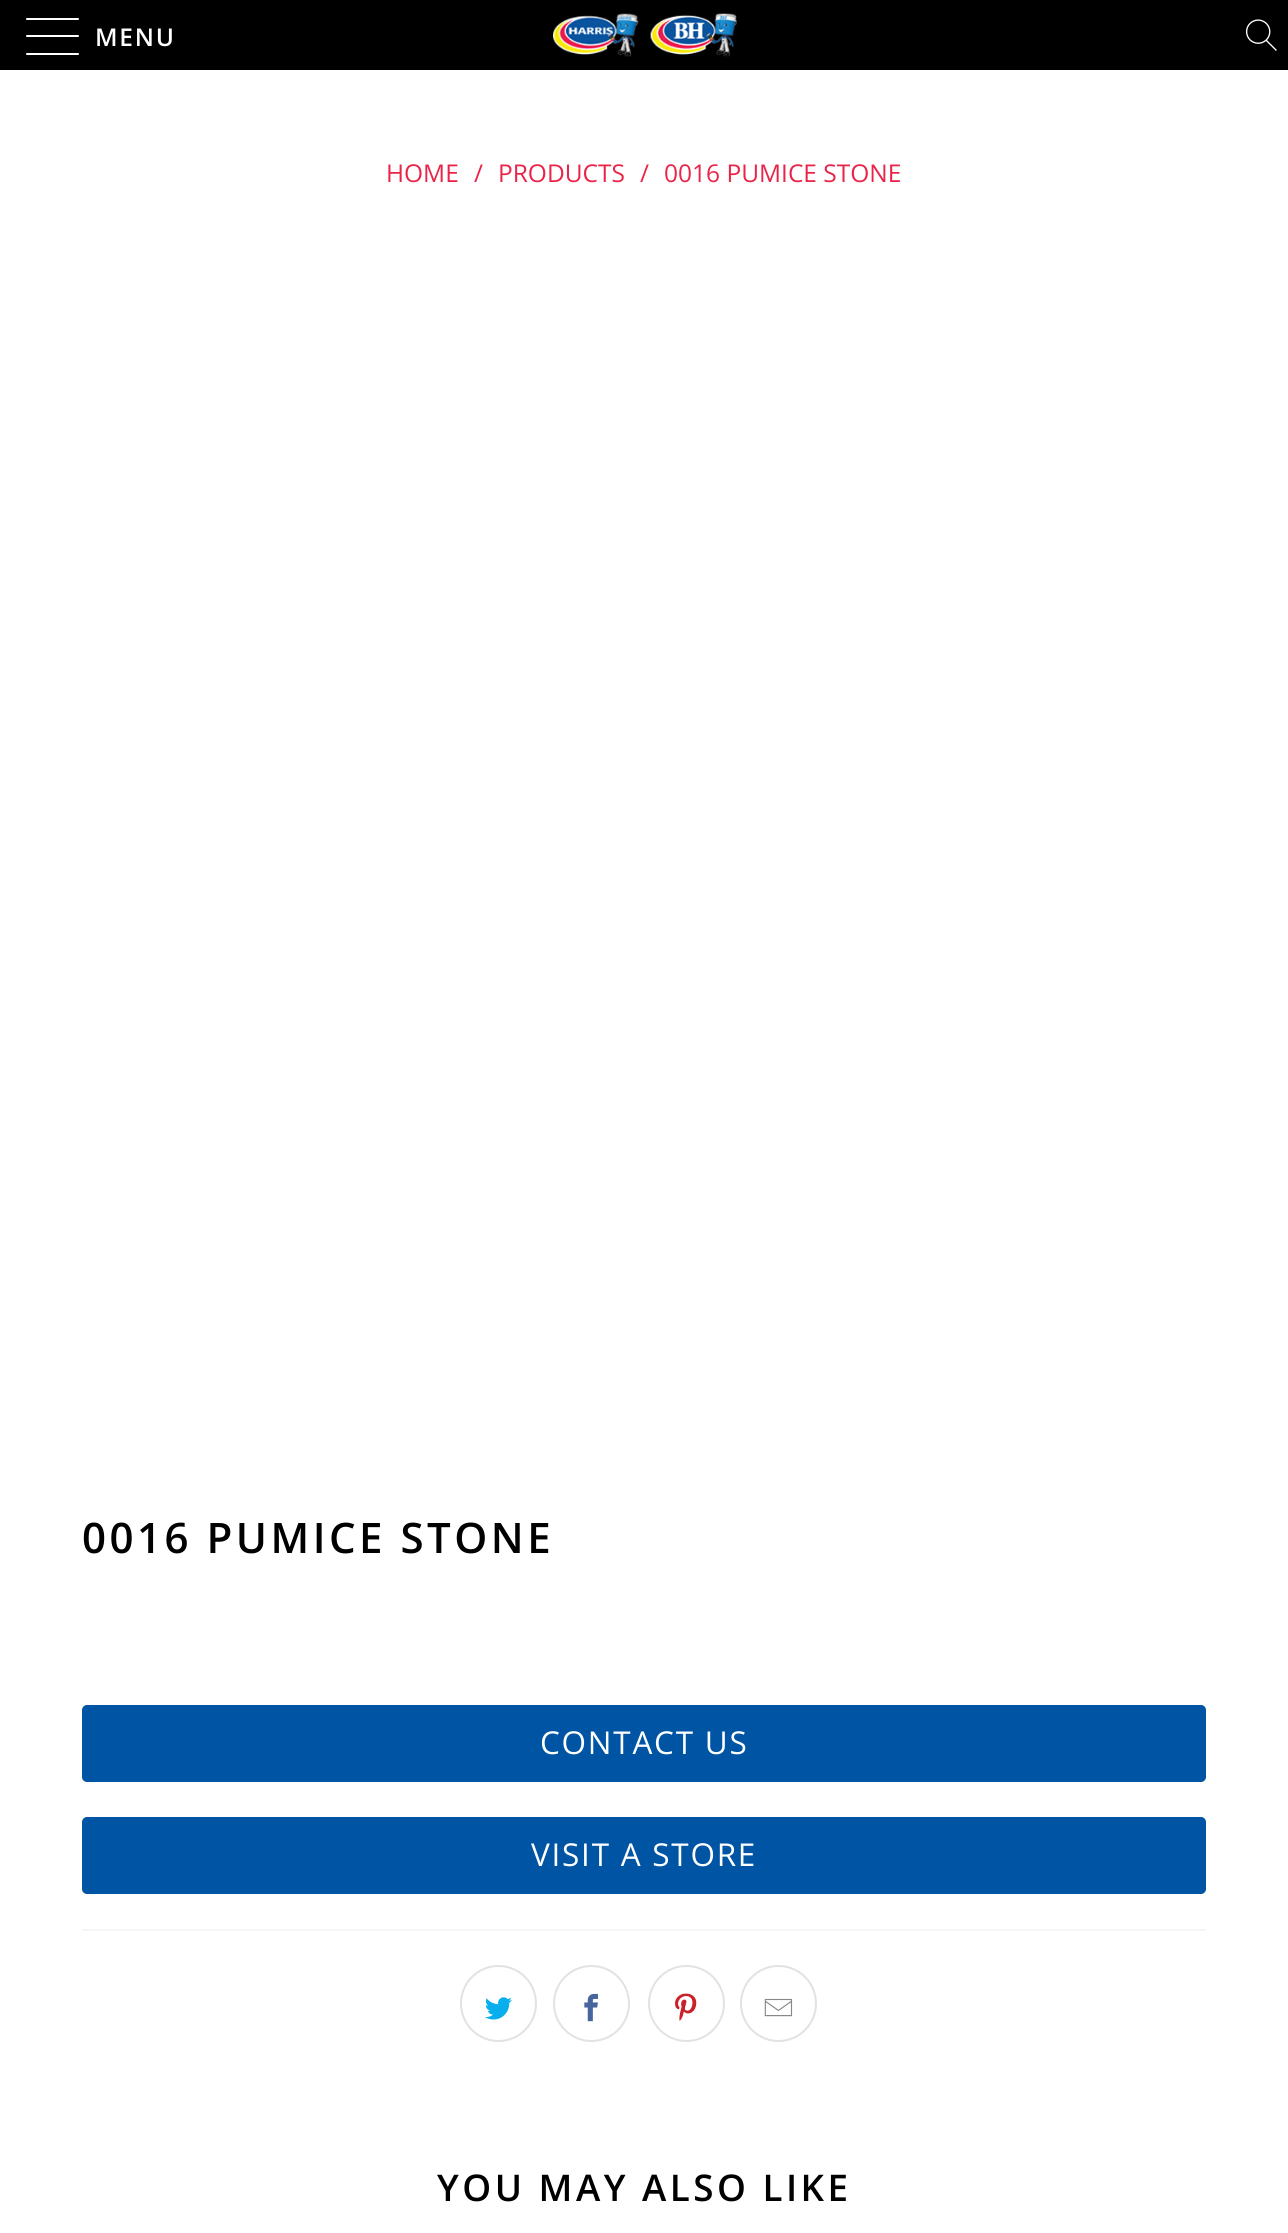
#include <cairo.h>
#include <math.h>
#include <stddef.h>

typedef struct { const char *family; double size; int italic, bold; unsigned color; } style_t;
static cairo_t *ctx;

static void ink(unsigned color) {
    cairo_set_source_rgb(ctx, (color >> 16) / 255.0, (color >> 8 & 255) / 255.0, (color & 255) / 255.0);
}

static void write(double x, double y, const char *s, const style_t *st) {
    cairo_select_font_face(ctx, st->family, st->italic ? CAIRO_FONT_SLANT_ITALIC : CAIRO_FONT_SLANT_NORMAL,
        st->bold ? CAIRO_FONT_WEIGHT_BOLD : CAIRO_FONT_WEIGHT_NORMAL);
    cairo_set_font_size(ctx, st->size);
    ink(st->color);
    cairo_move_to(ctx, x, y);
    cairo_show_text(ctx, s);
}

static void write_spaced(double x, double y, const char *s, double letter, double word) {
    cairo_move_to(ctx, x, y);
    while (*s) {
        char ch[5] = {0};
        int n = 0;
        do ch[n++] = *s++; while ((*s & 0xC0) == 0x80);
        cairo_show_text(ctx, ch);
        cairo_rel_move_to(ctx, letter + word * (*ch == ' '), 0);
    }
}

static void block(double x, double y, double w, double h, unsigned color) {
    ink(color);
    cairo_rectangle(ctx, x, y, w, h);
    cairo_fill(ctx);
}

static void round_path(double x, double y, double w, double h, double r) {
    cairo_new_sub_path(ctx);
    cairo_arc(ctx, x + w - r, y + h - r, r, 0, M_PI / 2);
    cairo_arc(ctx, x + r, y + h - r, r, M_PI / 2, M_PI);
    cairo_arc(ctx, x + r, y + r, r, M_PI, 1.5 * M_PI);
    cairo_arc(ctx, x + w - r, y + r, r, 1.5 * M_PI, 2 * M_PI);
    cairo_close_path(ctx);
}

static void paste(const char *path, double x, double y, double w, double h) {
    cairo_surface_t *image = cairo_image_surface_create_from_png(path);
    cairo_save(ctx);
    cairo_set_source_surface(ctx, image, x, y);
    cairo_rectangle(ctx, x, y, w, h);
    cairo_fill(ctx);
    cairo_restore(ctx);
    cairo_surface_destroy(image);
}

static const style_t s1 = {"Open Sans", 24.5, 0, 0, 0xea2448};

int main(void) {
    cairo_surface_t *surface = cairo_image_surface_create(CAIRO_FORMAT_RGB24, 1288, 2233);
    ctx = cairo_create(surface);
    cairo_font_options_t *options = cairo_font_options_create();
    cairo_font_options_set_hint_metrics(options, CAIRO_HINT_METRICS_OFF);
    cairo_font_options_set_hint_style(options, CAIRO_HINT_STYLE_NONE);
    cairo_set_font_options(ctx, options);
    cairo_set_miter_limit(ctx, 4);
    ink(0xffffff);
    cairo_paint(ctx);
    block(0, 0, 1288, 70, 0x000000);
    ink(0xffffff);
    round_path(26, 18, 53, 2, 1);
    cairo_fill(ctx);
    round_path(26, 35, 53, 2, 1);
    cairo_fill(ctx);
    round_path(26, 53, 53, 2, 1);
    cairo_fill(ctx);
    cairo_select_font_face(ctx, "Open Sans SemiBold", CAIRO_FONT_SLANT_NORMAL, CAIRO_FONT_WEIGHT_NORMAL);
    cairo_set_font_size(ctx, 24.5);
    write_spaced(95, 46, "MENU", 1.75, 0);
    paste("pic1.png", 553, 13, 184, 44);
    paste("pic2.png", 1245, 19, 32, 32);
    write(386, 182, "HOME", &s1);
    write(474, 182, "/", &s1);
    write(498, 182, "PRODUCTS", &s1);
    write(640, 182, "/", &s1);
    write(664, 182, "0016 PUMICE STONE", &s1);
    cairo_select_font_face(ctx, "Open Sans SemiBold", CAIRO_FONT_SLANT_NORMAL, CAIRO_FONT_WEIGHT_NORMAL);
    cairo_set_font_size(ctx, 42);
    ink(0x000000);
    write_spaced(82, 1553, "0016 PUMICE STONE", 3.5, 0);
    ink(0x0054a4);
    round_path(83, 1706, 1122, 75, 4);
    cairo_fill_preserve(ctx);
    cairo_stroke(ctx);
    cairo_select_font_face(ctx, "Open Sans", CAIRO_FONT_SLANT_NORMAL, CAIRO_FONT_WEIGHT_NORMAL);
    cairo_set_font_size(ctx, 31.5);
    ink(0xffffff);
    write_spaced(540, 1754, "CONTACT US", 1.75, 0);
    ink(0x0054a4);
    round_path(83, 1818, 1122, 75, 4);
    cairo_fill_preserve(ctx);
    cairo_stroke(ctx);
    ink(0xffffff);
    write_spaced(531, 1866, "VISIT A STORE", 1.75, 0);
    block(82, 1929, 1124, 2, 0xf5f5f5);
    cairo_new_path(ctx);
    cairo_arc(ctx, 498.5, 2003.5, 37.5, 0, 2 * M_PI);
    ink(0xe2e2e2);
    cairo_stroke(ctx);
    paste("pic3.png", 485, 1997, 27, 23);
    cairo_arc(ctx, 591.5, 2003.5, 37.5, 0, 2 * M_PI);
    cairo_stroke(ctx);
    paste("pic4.png", 584, 1993, 14, 29);
    cairo_arc(ctx, 686.5, 2003.5, 37.5, 0, 2 * M_PI);
    cairo_stroke(ctx);
    paste("pic5.png", 675, 1993, 22, 28);
    cairo_arc(ctx, 778.5, 2003.5, 37.5, 0, 2 * M_PI);
    cairo_stroke(ctx);
    paste("pic6.png", 764, 1998, 29, 19);
    cairo_select_font_face(ctx, "Open Sans SemiBold", CAIRO_FONT_SLANT_NORMAL, CAIRO_FONT_WEIGHT_NORMAL);
    cairo_set_font_size(ctx, 36.75);
    ink(0x000000);
    write_spaced(437, 2201, "YOU MAY ALSO LIKE", 3.5, 0);
    cairo_surface_write_to_png(surface, "screenshot.png");
    cairo_font_options_destroy(options);
    cairo_destroy(ctx);
    cairo_surface_destroy(surface);
    return 0;
}
